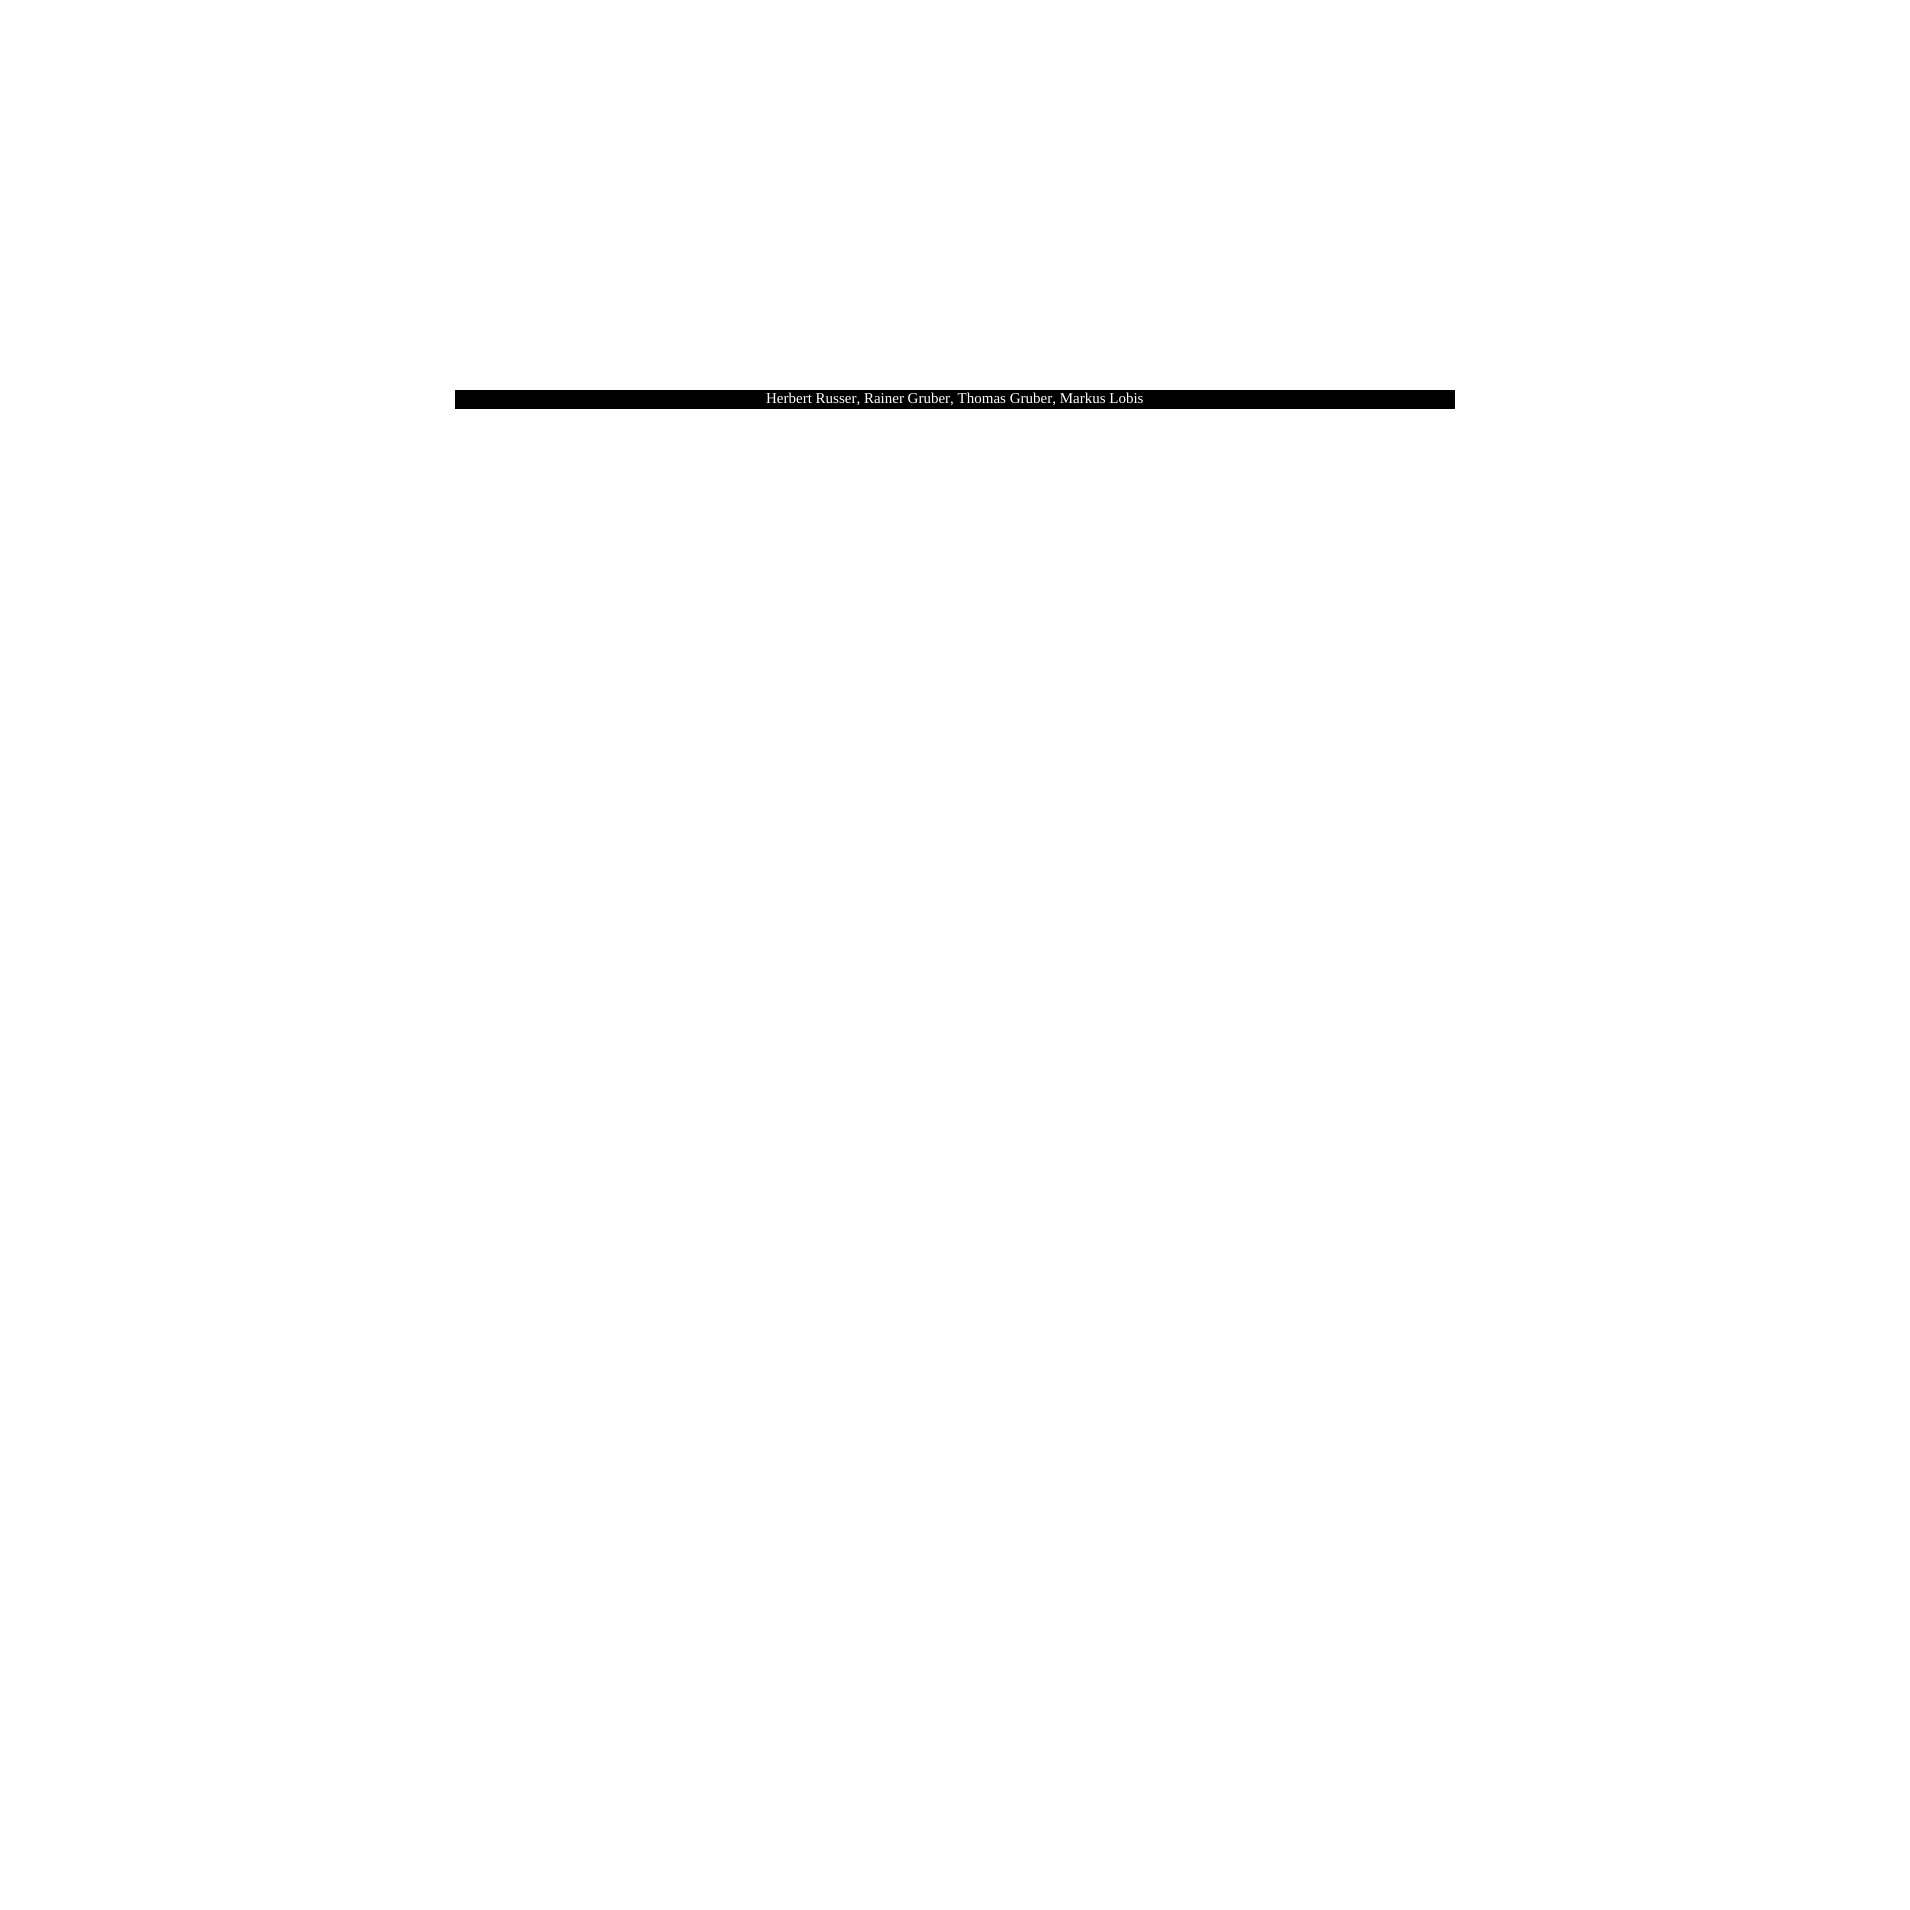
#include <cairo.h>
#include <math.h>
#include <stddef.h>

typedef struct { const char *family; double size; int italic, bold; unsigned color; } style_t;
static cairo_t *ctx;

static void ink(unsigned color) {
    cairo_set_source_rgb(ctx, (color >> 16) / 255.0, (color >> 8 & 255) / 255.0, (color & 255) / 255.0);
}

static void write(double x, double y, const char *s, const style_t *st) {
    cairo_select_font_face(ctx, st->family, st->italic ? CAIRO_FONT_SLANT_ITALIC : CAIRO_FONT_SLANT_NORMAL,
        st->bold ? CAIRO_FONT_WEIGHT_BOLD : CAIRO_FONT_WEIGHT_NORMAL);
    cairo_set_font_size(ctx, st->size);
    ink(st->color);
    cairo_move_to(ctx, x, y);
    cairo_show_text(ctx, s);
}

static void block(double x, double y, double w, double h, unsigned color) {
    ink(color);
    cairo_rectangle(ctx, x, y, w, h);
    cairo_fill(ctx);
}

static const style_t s1 = {"Liberation Serif", 15, 0, 0, 0xffffff};

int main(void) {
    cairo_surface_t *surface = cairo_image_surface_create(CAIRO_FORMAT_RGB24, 1910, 1910);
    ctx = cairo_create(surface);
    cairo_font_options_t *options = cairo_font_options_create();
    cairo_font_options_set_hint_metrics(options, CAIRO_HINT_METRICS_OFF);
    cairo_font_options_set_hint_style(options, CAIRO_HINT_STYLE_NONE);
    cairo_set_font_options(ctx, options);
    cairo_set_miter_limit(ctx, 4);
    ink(0xffffff);
    cairo_paint(ctx);
    block(455, 390, 1000, 19, 0x000000);
    write(766, 403, "Herbert Russer, Rainer Gruber, Thomas Gruber, Markus Lobis", &s1);
    cairo_surface_write_to_png(surface, "screenshot.png");
    cairo_font_options_destroy(options);
    cairo_destroy(ctx);
    cairo_surface_destroy(surface);
    return 0;
}
